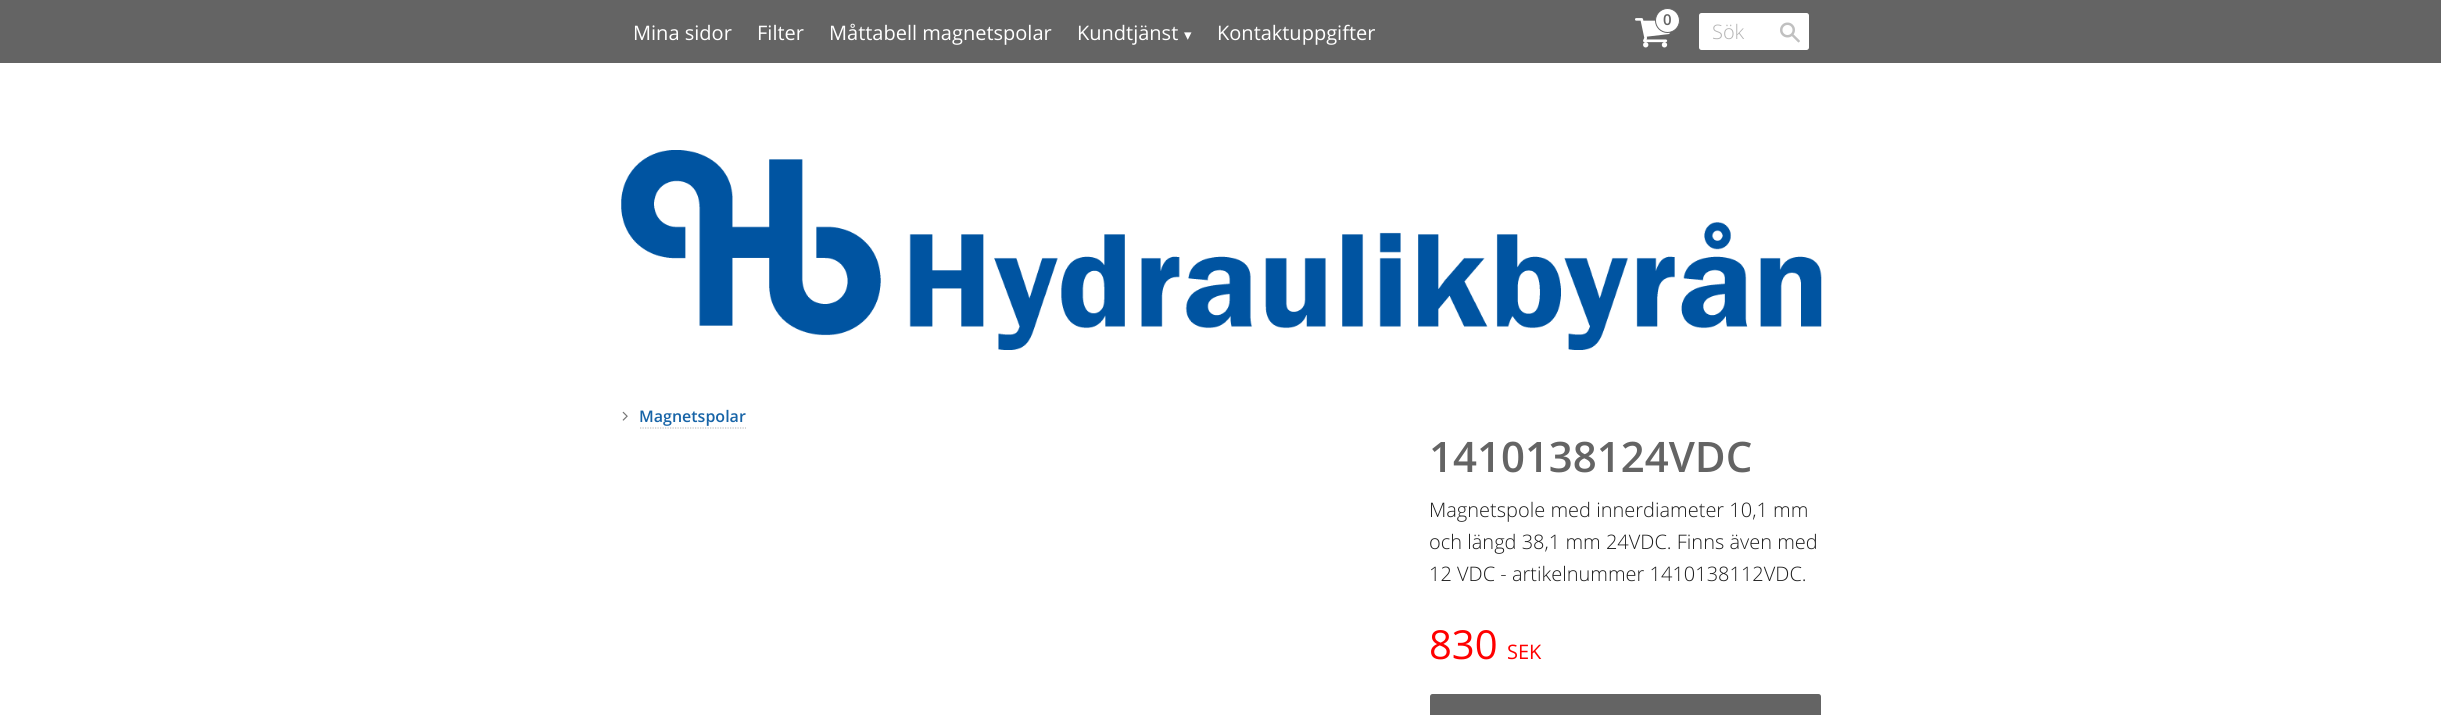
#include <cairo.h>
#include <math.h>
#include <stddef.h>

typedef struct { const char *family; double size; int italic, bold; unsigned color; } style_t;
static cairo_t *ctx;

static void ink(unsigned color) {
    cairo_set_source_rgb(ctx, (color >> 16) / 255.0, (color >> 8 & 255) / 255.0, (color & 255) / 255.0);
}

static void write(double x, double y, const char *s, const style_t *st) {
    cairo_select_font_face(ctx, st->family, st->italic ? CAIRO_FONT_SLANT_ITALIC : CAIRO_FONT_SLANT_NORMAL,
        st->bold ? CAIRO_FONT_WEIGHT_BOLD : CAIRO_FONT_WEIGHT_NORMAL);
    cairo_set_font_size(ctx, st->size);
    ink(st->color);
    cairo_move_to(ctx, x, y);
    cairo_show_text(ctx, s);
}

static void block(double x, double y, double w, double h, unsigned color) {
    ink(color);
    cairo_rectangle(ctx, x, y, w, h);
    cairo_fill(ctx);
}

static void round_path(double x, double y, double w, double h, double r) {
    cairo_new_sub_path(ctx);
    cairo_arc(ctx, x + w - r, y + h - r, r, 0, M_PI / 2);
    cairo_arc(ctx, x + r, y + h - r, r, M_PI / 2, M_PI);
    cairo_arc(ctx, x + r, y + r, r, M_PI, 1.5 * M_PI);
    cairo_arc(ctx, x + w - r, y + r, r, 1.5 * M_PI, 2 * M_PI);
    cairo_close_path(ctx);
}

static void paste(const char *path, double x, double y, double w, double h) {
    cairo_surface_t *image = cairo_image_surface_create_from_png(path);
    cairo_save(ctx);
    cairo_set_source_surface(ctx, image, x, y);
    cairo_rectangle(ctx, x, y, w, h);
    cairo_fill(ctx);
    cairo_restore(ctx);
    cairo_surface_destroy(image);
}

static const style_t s1 = {"Open Sans SemiBold", 15, 0, 0, 0x646464};
static const style_t s2 = {"Open Sans", 20, 0, 0, 0xffffff};
static const style_t s3 = {"DejaVu Sans", 15, 0, 0, 0xffffff};
static const style_t s4 = {"Open Sans Light", 20, 0, 0, 0xb4b4b4};
static const style_t s5 = {"Open Sans SemiBold", 16, 0, 0, 0x1764a7};
static const style_t s6 = {"Open Sans SemiBold", 42, 0, 0, 0x646464};
static const style_t s7 = {"Open Sans Light", 20, 0, 0, 0x1e1e1e};
static const style_t s8 = {"Open Sans", 40, 0, 0, 0xff0000};
static const style_t s9 = {"Open Sans", 20, 0, 0, 0xff0000};

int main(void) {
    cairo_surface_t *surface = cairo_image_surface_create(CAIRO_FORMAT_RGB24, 2441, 715);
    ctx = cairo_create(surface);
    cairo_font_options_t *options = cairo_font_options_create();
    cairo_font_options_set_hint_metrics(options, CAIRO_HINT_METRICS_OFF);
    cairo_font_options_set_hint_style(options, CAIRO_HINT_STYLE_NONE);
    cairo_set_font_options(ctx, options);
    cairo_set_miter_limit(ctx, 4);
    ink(0xffffff);
    cairo_paint(ctx);
    block(0, 0, 2441, 63, 0x646464);
    paste("pic1.png", 1635, 18, 35, 30);
    ink(0xffffff);
    cairo_arc(ctx, 1667.5, 20.5, 12, 0, 2 * M_PI);
    cairo_fill_preserve(ctx);
    ink(0x646464);
    cairo_set_line_width(ctx, 1);
    cairo_stroke(ctx);
    write(1663, 25, "0", &s1);
    write(633, 40, "Mina sidor", &s2);
    write(757, 40, "Filter", &s2);
    write(829, 40, "Måttabell magnetspolar", &s2);
    write(1077, 40, "Kundtjänst", &s2);
    write(1184, 40, "▾", &s3);
    write(1217, 40, "Kontaktuppgifter", &s2);
    round_path(1699, 13, 110, 37, 2.5);
    cairo_fill(ctx);
    write(1712, 39, "Sök", &s4);
    paste("pic2.png", 1780, 22, 20, 21);
    paste("pic3.png", 621, 150, 1201, 200);
    paste("pic4.png", 622, 411, 6, 10);
    write(639, 422, "Magnetspolar", &s5);
    cairo_new_path(ctx);
    cairo_move_to(ctx, 640, 428);
    cairo_line_to(ctx, 746, 428);
    ink(0xc0c0c0);
    cairo_set_line_width(ctx, 1.2);
    cairo_set_dash(ctx, (double[]){1.25, 1.25}, 2, 0);
    cairo_stroke(ctx);
    write(1429, 472, "1410138124VDC", &s6);
    write(1429, 517, "Magnetspole med innerdiameter 10,1 mm", &s7);
    write(1429, 549, "och längd 38,1 mm 24VDC. Finns även med", &s7);
    write(1429, 581, "12 VDC - artikelnummer 1410138112VDC.", &s7);
    write(1429, 659, "830", &s8);
    write(1507, 659, "SEK", &s9);
    ink(0x646464);
    round_path(1430, 694, 391, 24, 2.5);
    cairo_fill(ctx);
    cairo_surface_write_to_png(surface, "screenshot.png");
    cairo_font_options_destroy(options);
    cairo_destroy(ctx);
    cairo_surface_destroy(surface);
    return 0;
}
